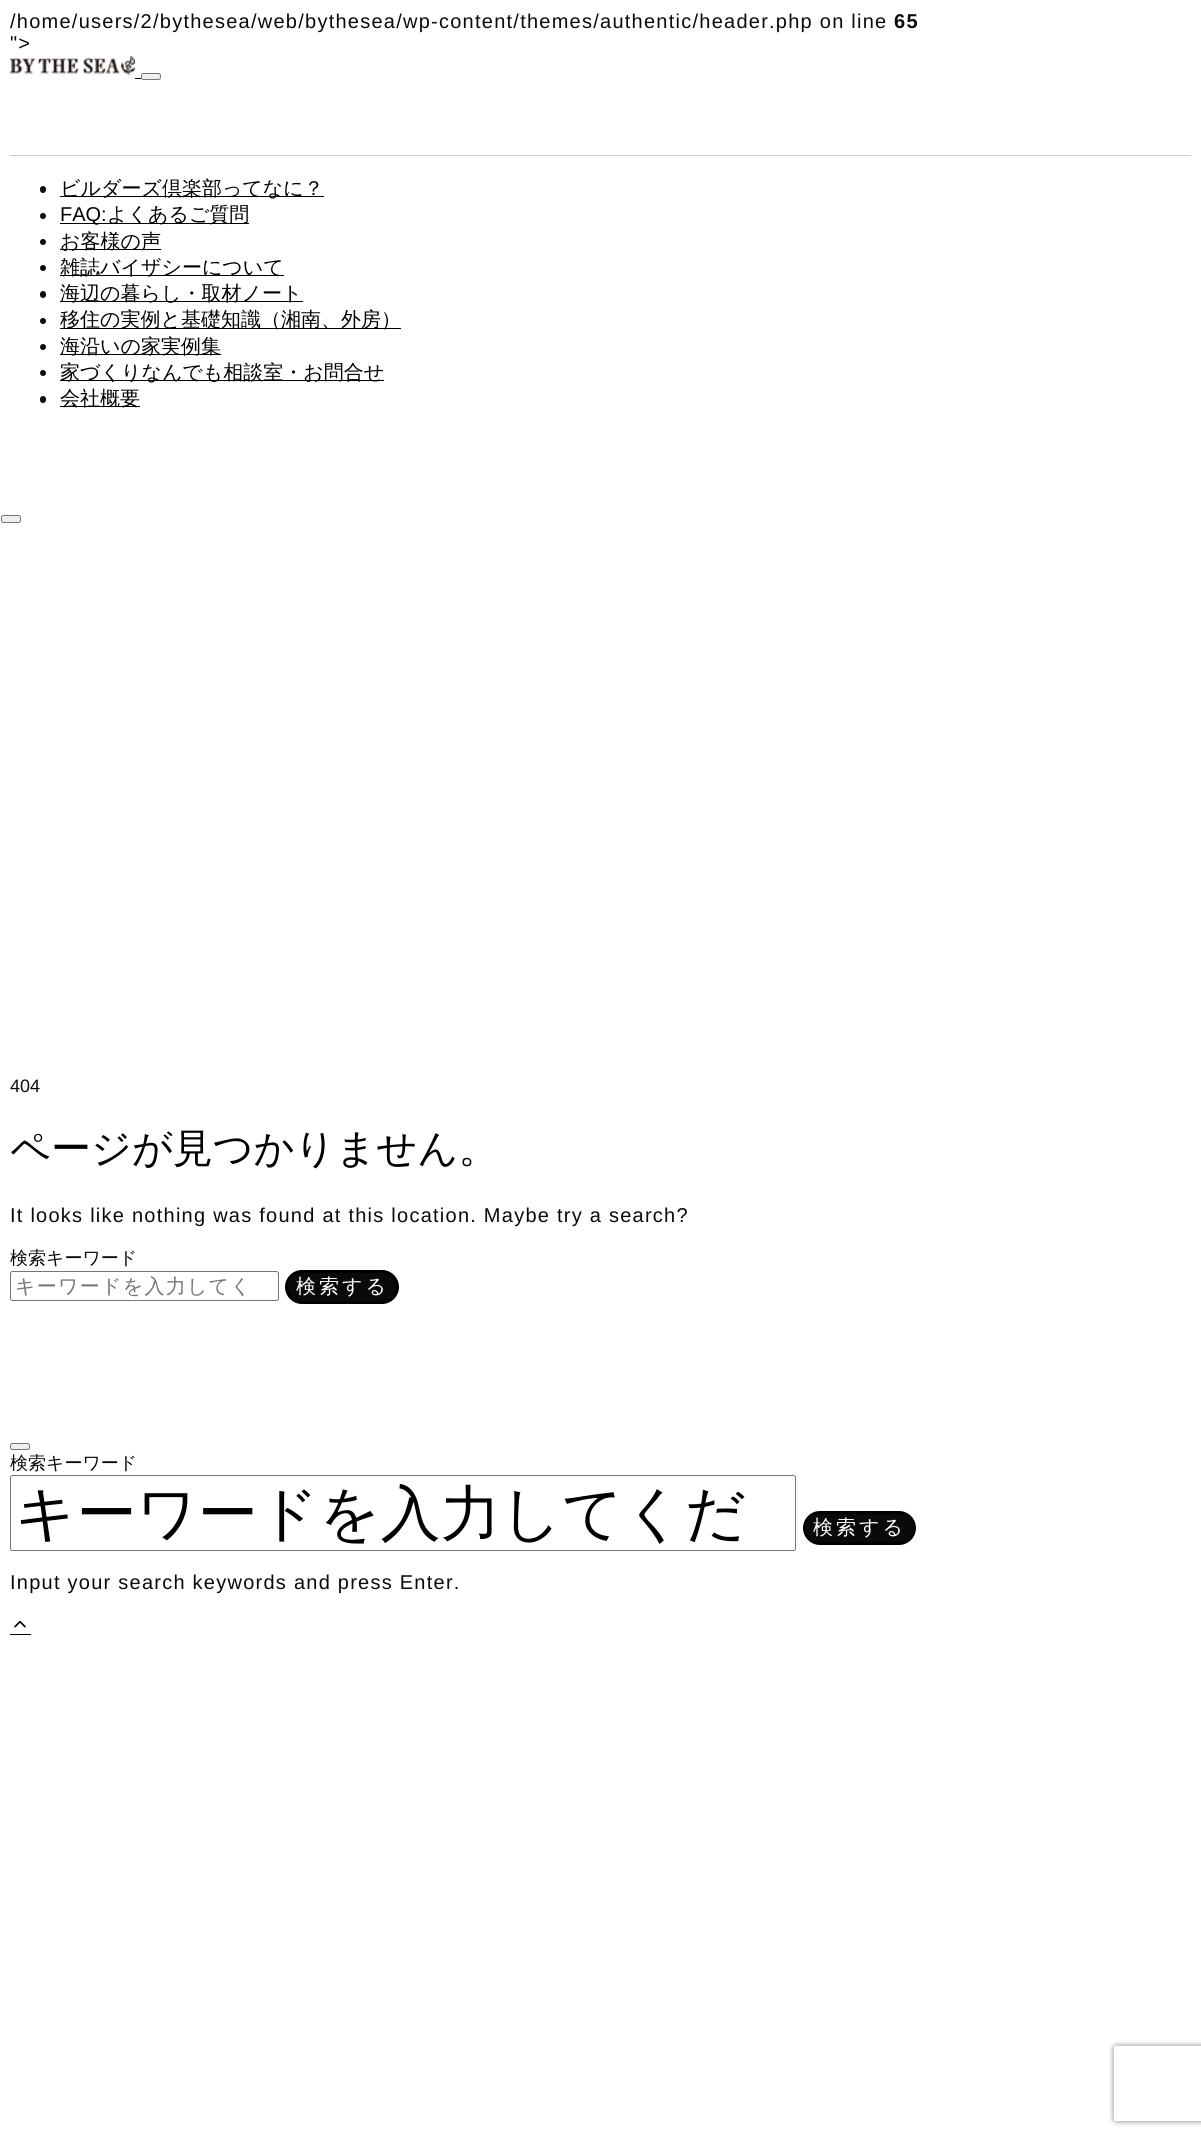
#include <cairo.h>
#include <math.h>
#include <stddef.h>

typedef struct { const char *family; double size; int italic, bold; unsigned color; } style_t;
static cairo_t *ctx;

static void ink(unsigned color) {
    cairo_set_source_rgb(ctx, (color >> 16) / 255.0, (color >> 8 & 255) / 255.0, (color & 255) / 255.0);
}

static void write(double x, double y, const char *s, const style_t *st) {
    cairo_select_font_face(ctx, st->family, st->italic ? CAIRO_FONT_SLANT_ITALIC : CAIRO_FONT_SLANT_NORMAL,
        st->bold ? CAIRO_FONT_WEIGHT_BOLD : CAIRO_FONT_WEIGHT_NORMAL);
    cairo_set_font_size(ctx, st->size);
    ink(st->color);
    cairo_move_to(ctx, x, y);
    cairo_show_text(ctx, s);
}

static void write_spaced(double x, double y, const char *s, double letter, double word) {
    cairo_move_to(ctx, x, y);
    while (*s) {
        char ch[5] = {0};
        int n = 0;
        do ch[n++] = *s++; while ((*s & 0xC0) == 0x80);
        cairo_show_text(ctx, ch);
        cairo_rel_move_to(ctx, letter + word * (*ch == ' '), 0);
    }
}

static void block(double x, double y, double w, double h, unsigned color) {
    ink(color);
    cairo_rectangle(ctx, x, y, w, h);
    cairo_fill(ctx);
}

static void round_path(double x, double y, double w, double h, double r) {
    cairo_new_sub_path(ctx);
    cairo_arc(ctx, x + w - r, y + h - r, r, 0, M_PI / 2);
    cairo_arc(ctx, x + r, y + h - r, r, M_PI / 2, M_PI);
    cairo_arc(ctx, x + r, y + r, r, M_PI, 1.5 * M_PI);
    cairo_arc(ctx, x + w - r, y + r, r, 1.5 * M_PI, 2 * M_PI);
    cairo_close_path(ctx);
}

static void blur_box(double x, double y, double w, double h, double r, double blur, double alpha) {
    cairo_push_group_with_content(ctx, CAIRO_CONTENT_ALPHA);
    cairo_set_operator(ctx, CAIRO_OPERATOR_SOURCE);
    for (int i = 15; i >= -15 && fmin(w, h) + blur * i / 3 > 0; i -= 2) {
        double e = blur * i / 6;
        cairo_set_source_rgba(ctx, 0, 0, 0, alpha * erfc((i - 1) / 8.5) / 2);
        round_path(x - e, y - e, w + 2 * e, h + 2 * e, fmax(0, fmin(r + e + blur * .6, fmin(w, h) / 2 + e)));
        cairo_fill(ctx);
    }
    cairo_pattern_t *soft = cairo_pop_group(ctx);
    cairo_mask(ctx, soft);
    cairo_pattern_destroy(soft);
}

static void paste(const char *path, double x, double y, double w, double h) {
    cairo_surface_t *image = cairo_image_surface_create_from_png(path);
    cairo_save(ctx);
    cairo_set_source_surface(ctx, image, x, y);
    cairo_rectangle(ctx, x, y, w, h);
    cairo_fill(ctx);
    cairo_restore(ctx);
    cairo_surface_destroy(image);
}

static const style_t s1 = {"WenQuanYi Zen Hei Medium", 20, 0, 0, 0x000000};
static const style_t s2 = {"Liberation Sans", 20, 0, 0, 0x000000};
static const style_t s3 = {"Liberation Sans", 18, 0, 0, 0x0a0a0a};
static const style_t s4 = {"WenQuanYi Zen Hei Medium", 40, 0, 0, 0x000000};
static const style_t s5 = {"WenQuanYi Zen Hei Medium", 18, 0, 0, 0x0a0a0a};
static const style_t s6 = {"WenQuanYi Zen Hei Medium", 60, 0, 0, 0x000000};

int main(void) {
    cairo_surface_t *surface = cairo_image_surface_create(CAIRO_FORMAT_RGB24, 1201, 2138);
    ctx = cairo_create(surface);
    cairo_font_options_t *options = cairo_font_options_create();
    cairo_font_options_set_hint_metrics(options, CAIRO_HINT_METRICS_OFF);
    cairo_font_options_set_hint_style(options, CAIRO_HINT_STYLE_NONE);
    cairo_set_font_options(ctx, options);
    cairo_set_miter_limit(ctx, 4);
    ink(0xffffff);
    cairo_paint(ctx);
    cairo_select_font_face(ctx, "Liberation Sans", CAIRO_FONT_SLANT_NORMAL, CAIRO_FONT_WEIGHT_NORMAL);
    cairo_set_font_size(ctx, 20);
    ink(0x0a0a0a);
    write_spaced(10, 28, "/home/users/2/bythesea/web/bythesea/wp-content/themes/authentic/header.php on line", 1.25, 0);
    cairo_select_font_face(ctx, "Liberation Sans", CAIRO_FONT_SLANT_NORMAL, CAIRO_FONT_WEIGHT_BOLD);
    write_spaced(894, 28, "65", 1.25, 0);
    cairo_select_font_face(ctx, "Liberation Sans", CAIRO_FONT_SLANT_NORMAL, CAIRO_FONT_WEIGHT_NORMAL);
    write_spaced(10, 50, "\">", 1.25, 0);
    block(10, 155, 1181, 1, 0xcccccc);
    paste("pic1.png", 10, 56, 125, 20);
    block(135, 78, 6, 1, 0x000000);
    ink(0xefefef);
    round_path(141.5, 73.5, 19, 6, 2);
    cairo_fill_preserve(ctx);
    ink(0x767676);
    cairo_set_line_width(ctx, 1);
    cairo_stroke(ctx);
    ink(0x0a0a0a);
    round_path(40, 186, 6, 7, 3);
    cairo_fill(ctx);
    block(60, 196, 264, 1, 0x000000);
    write(60, 195, "ビルダーズ倶楽部ってなに？", &s1);
    ink(0x0a0a0a);
    cairo_new_path(ctx);
    cairo_arc(ctx, 43, 216, 3, 0, 2 * M_PI);
    cairo_fill(ctx);
    block(60, 223, 189, 1, 0x000000);
    write(60, 221, "FAQ:", &s2);
    write(107, 221, "よくあるご質問", &s1);
    ink(0x0a0a0a);
    cairo_new_path(ctx);
    cairo_arc(ctx, 43, 242, 3, 0, 2 * M_PI);
    cairo_fill(ctx);
    block(60, 249, 101, 1, 0x000000);
    write(60, 248, "お客様の声", &s1);
    ink(0x0a0a0a);
    cairo_new_path(ctx);
    cairo_arc(ctx, 43, 268, 3, 0, 2 * M_PI);
    cairo_fill(ctx);
    block(60, 275, 224, 1, 0x000000);
    write(60, 274, "雑誌バイザシーについて", &s1);
    ink(0x0a0a0a);
    round_path(40, 291, 6, 7, 3);
    cairo_fill(ctx);
    block(60, 301, 243, 1, 0x000000);
    write(60, 300, "海辺の暮らし・取材ノート", &s1);
    ink(0x0a0a0a);
    cairo_new_path(ctx);
    cairo_arc(ctx, 43, 321, 3, 0, 2 * M_PI);
    cairo_fill(ctx);
    block(60, 328, 341, 1, 0x000000);
    write(60, 326, "移住の実例と基礎知識（湘南、外房）", &s1);
    ink(0x0a0a0a);
    cairo_new_path(ctx);
    cairo_arc(ctx, 43, 347, 3, 0, 2 * M_PI);
    cairo_fill(ctx);
    block(60, 354, 161, 1, 0x000000);
    write(60, 353, "海沿いの家実例集", &s1);
    ink(0x0a0a0a);
    cairo_new_path(ctx);
    cairo_arc(ctx, 43, 373, 3, 0, 2 * M_PI);
    cairo_fill(ctx);
    block(60, 380, 324, 1, 0x000000);
    write(60, 379, "家づくりなんでも相談室・お問合せ", &s1);
    ink(0x0a0a0a);
    round_path(40, 396, 6, 7, 3);
    cairo_fill(ctx);
    block(60, 406, 80, 1, 0x000000);
    write(60, 405, "会社概要", &s1);
    ink(0xefefef);
    round_path(1.5, 515.5, 19, 7, 2);
    cairo_fill_preserve(ctx);
    ink(0x767676);
    cairo_stroke(ctx);
    write(10, 1092, "404", &s3);
    write(10, 1162, "ページが見つかりません。", &s4);
    cairo_select_font_face(ctx, "Liberation Sans", CAIRO_FONT_SLANT_NORMAL, CAIRO_FONT_WEIGHT_NORMAL);
    cairo_set_font_size(ctx, 20);
    ink(0x0a0a0a);
    write_spaced(10, 1222, "It looks like nothing was found at this location. Maybe try a search?", 1.25, 0);
    write(10, 1264, "検索キーワード", &s5);
    round_path(10.5, 1271.5, 268, 29, 2);
    ink(0x767676);
    cairo_stroke(ctx);
    cairo_set_font_size(ctx, 20);
    ink(0x757575);
    write_spaced(15, 1293, "キーワードを入力してく", 1.25, 0);
    ink(0x0a0a0a);
    round_path(286.5, 1271.5, 111, 31, 15.5);
    cairo_fill_preserve(ctx);
    ink(0x000000);
    cairo_set_line_width(ctx, 3);
    cairo_stroke(ctx);
    ink(0xffffff);
    write_spaced(296, 1293, "検索する", 3, 0);
    ink(0xefefef);
    round_path(10.5, 1443.5, 19, 6, 2);
    cairo_fill_preserve(ctx);
    ink(0x767676);
    cairo_set_line_width(ctx, 1);
    cairo_stroke(ctx);
    write(10, 1469, "検索キーワード", &s5);
    round_path(10.5, 1475.5, 785, 75, 2);
    ink(0x767676);
    cairo_stroke(ctx);
    write(15, 1534, "キーワードを入力してくだ", &s6);
    ink(0x0a0a0a);
    round_path(804.5, 1512.5, 110, 31, 15.5);
    cairo_fill_preserve(ctx);
    ink(0x000000);
    cairo_set_line_width(ctx, 3);
    cairo_stroke(ctx);
    cairo_set_font_size(ctx, 20);
    ink(0xffffff);
    write_spaced(813, 1534, "検索する", 3, 0);
    cairo_select_font_face(ctx, "Liberation Sans", CAIRO_FONT_SLANT_NORMAL, CAIRO_FONT_WEIGHT_NORMAL);
    ink(0x0a0a0a);
    write_spaced(10, 1589, "Input your search keywords and press Enter.", 1.25, 0);
    paste("pic2.png", 14, 1620, 12, 8);
    block(10, 1634, 21, 1, 0x000000);
    cairo_save(ctx);
    cairo_set_fill_rule(ctx, CAIRO_FILL_RULE_EVEN_ODD);
    cairo_new_path(ctx);
    cairo_move_to(ctx, 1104, 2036);
    cairo_line_to(ctx, 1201, 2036);
    cairo_line_to(ctx, 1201, 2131);
    cairo_line_to(ctx, 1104, 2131);
    cairo_close_path(ctx);
    cairo_move_to(ctx, 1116.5, 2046);
    cairo_line_to(ctx, 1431.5, 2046);
    cairo_curve_to(ctx, 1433, 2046, 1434, 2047, 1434, 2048.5);
    cairo_line_to(ctx, 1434, 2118.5);
    cairo_curve_to(ctx, 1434, 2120, 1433, 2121, 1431.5, 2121);
    cairo_line_to(ctx, 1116.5, 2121);
    cairo_curve_to(ctx, 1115, 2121, 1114, 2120, 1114, 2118.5);
    cairo_line_to(ctx, 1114, 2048.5);
    cairo_curve_to(ctx, 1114, 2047, 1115, 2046, 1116.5, 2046);
    cairo_close_path(ctx);
    cairo_clip(ctx);
    ink(0x808080);
    blur_box(1114, 2046, 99, 75, 2.5, 3, 1);
    cairo_restore(ctx);
    cairo_surface_write_to_png(surface, "screenshot.png");
    cairo_font_options_destroy(options);
    cairo_destroy(ctx);
    cairo_surface_destroy(surface);
    return 0;
}
